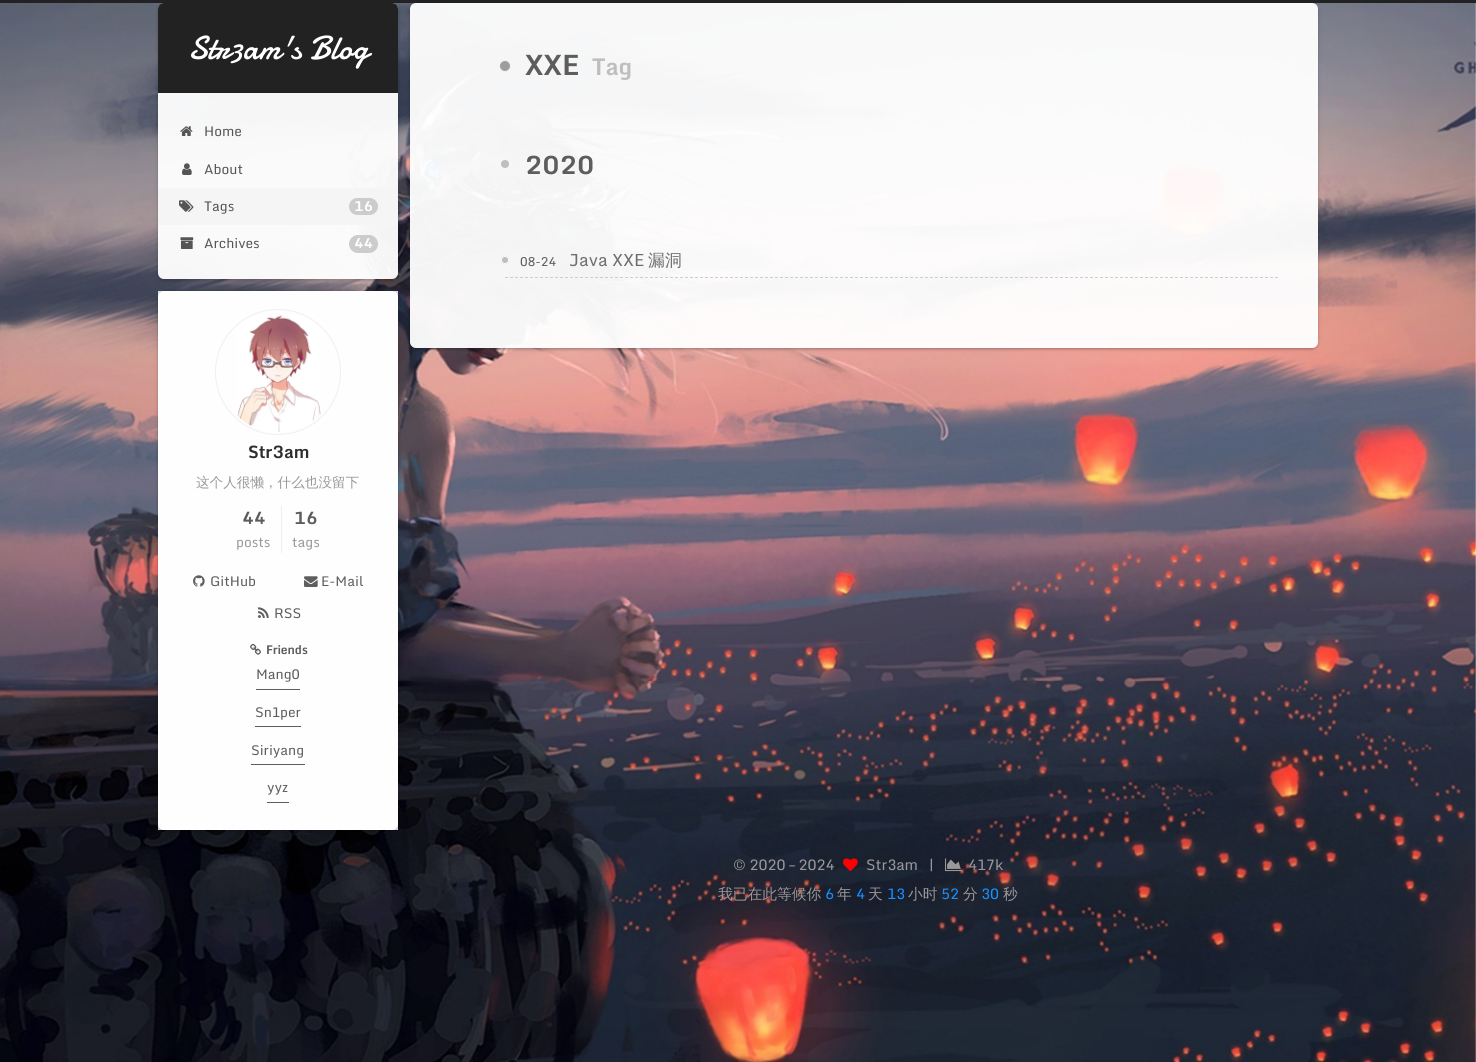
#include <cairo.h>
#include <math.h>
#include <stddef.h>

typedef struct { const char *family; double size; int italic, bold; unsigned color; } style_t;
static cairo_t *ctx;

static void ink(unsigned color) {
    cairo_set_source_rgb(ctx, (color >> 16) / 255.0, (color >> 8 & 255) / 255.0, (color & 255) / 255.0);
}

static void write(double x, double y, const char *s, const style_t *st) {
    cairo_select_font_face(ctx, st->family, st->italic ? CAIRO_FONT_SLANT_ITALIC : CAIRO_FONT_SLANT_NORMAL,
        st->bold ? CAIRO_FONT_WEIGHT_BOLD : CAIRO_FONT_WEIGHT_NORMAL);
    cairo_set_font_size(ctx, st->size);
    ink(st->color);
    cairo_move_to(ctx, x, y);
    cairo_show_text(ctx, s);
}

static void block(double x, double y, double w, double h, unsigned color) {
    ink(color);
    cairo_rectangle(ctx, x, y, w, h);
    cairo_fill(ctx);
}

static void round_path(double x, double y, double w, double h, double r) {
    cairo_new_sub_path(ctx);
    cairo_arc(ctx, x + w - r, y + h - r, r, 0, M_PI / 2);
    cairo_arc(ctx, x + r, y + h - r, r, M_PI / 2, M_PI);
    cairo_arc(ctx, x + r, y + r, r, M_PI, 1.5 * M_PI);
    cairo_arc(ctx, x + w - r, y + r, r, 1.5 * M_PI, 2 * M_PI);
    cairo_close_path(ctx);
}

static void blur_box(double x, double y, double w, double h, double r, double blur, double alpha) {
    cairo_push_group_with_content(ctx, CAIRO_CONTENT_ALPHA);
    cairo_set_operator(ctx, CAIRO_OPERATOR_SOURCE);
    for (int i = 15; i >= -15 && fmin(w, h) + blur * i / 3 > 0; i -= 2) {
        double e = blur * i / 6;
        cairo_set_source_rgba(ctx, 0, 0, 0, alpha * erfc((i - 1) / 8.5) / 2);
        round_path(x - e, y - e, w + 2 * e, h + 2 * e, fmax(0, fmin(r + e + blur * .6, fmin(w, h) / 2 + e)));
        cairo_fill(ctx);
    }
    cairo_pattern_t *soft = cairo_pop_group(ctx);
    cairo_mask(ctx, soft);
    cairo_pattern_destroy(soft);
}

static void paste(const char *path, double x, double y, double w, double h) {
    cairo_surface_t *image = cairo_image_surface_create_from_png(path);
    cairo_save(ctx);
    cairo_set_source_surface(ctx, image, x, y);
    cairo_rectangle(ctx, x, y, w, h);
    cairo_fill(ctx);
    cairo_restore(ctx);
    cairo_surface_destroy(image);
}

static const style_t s1 = {"Damion", 33.5, 0, 0, 0xffffff};
static const style_t s2 = {"Monda", 13.6, 0, 0, 0x555555};
static const style_t s3 = {"Monda", 13.6, 0, 1, 0xffffff};
static const style_t s4 = {"Monda", 28, 0, 1, 0x5d5d5d};
static const style_t s5 = {"Monda", 23, 0, 1, 0xbebebe};
static const style_t s6 = {"Monda", 25, 0, 1, 0x5d5d5d};
static const style_t s7 = {"Monda", 12.5, 0, 0, 0x5d5d5d};
static const style_t s8 = {"Monda", 17, 0, 0, 0x6d6d6d};
static const style_t s9 = {"WenQuanYi Zen Hei Medium", 17, 0, 0, 0x6d6d6d};
static const style_t s10 = {"Monda", 17, 0, 1, 0x2d2d2d};
static const style_t s11 = {"WenQuanYi Zen Hei Medium", 13.6, 0, 0, 0x999999};
static const style_t s12 = {"Monda", 17, 0, 1, 0x5d5d5d};
static const style_t s13 = {"Monda", 13.6, 0, 0, 0x999999};
static const style_t s14 = {"Monda", 13.6, 0, 0, 0x5d5d5d};
static const style_t s15 = {"Monda", 12, 0, 1, 0x5d5d5d};
static const style_t s16 = {"Monda", 14.75, 0, 0, 0x999999};
static const style_t s17 = {"WenQuanYi Zen Hei Medium", 14.75, 0, 0, 0x999999};
static const style_t s18 = {"Monda", 14.75, 0, 0, 0x1890ff};

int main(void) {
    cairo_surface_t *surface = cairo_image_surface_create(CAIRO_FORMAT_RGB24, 1476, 1062);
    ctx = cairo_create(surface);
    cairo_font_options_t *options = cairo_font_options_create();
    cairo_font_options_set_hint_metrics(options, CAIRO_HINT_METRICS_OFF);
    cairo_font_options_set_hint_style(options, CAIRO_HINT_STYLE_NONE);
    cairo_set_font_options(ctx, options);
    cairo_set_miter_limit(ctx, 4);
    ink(0xffffff);
    cairo_paint(ctx);
    paste("pic1.png", 0, 3, 1476, 1059);
    block(0, 0, 1476, 3, 0x222222);
    cairo_save(ctx);
    cairo_set_fill_rule(ctx, CAIRO_FILL_RULE_EVEN_ODD);
    cairo_new_path(ctx);
    cairo_move_to(ctx, 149, 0);
    cairo_line_to(ctx, 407, 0);
    cairo_line_to(ctx, 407, 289);
    cairo_line_to(ctx, 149, 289);
    cairo_close_path(ctx);
    cairo_move_to(ctx, 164, 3);
    cairo_line_to(ctx, 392, 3);
    cairo_curve_to(ctx, 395.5, 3, 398, 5.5, 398, 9);
    cairo_line_to(ctx, 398, 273);
    cairo_curve_to(ctx, 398, 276.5, 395.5, 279, 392, 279);
    cairo_line_to(ctx, 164, 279);
    cairo_curve_to(ctx, 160.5, 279, 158, 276.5, 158, 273);
    cairo_line_to(ctx, 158, 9);
    cairo_curve_to(ctx, 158, 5.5, 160.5, 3, 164, 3);
    cairo_close_path(ctx);
    cairo_clip(ctx);
    ink(0x000000);
    blur_box(158, 4, 240, 276, 6, 2.5, 0.12);
    cairo_restore(ctx);
    cairo_save(ctx);
    cairo_set_fill_rule(ctx, CAIRO_FILL_RULE_EVEN_ODD);
    cairo_new_path(ctx);
    cairo_move_to(ctx, 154, 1);
    cairo_line_to(ctx, 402, 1);
    cairo_line_to(ctx, 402, 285);
    cairo_line_to(ctx, 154, 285);
    cairo_close_path(ctx);
    cairo_move_to(ctx, 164, 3);
    cairo_line_to(ctx, 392, 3);
    cairo_curve_to(ctx, 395.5, 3, 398, 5.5, 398, 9);
    cairo_line_to(ctx, 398, 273);
    cairo_curve_to(ctx, 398, 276.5, 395.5, 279, 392, 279);
    cairo_line_to(ctx, 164, 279);
    cairo_curve_to(ctx, 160.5, 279, 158, 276.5, 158, 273);
    cairo_line_to(ctx, 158, 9);
    cairo_curve_to(ctx, 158, 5.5, 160.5, 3, 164, 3);
    cairo_close_path(ctx);
    cairo_clip(ctx);
    ink(0x000000);
    blur_box(158, 5, 240, 276, 6, 1, 0.12);
    cairo_restore(ctx);
    cairo_set_source_rgba(ctx, 1, 1, 1, 0.95);
    round_path(158, 3, 240, 276, 6);
    cairo_fill(ctx);
    ink(0x222222);
    cairo_new_path(ctx);
    cairo_move_to(ctx, 164, 3);
    cairo_line_to(ctx, 392, 3);
    cairo_curve_to(ctx, 395.5, 3, 398, 5.5, 398, 9);
    cairo_line_to(ctx, 398, 93);
    cairo_line_to(ctx, 158, 93);
    cairo_line_to(ctx, 158, 9);
    cairo_curve_to(ctx, 158, 5.5, 160.5, 3, 164, 3);
    cairo_close_path(ctx);
    cairo_fill(ctx);
    write(188, 59, "Str3am's Blog", &s1);
    paste("pic2.png", 180, 126, 13, 10);
    write(204, 136, "Home", &s2);
    paste("pic3.png", 182, 163, 10, 12);
    write(204, 174, "About", &s2);
    block(158, 188, 240, 37, 0xf5f5f5);
    paste("pic4.png", 179, 200, 15, 12);
    write(204, 211, "Tags", &s2);
    ink(0xcccccc);
    round_path(349, 198, 29, 17, 8.5);
    cairo_fill(ctx);
    write(354, 211, "16", &s3);
    paste("pic5.png", 180, 237, 14, 12);
    write(204, 248, "Archives", &s2);
    ink(0xcccccc);
    round_path(349, 235, 29, 18, 9);
    cairo_fill(ctx);
    write(354, 248, "44", &s3);
    cairo_save(ctx);
    cairo_set_fill_rule(ctx, CAIRO_FILL_RULE_EVEN_ODD);
    cairo_new_path(ctx);
    cairo_move_to(ctx, 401, 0);
    cairo_line_to(ctx, 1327, 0);
    cairo_line_to(ctx, 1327, 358);
    cairo_line_to(ctx, 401, 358);
    cairo_close_path(ctx);
    cairo_move_to(ctx, 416, 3);
    cairo_line_to(ctx, 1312, 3);
    cairo_curve_to(ctx, 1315.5, 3, 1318, 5.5, 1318, 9);
    cairo_line_to(ctx, 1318, 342);
    cairo_curve_to(ctx, 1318, 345.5, 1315.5, 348, 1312, 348);
    cairo_line_to(ctx, 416, 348);
    cairo_curve_to(ctx, 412.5, 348, 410, 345.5, 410, 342);
    cairo_line_to(ctx, 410, 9);
    cairo_curve_to(ctx, 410, 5.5, 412.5, 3, 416, 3);
    cairo_close_path(ctx);
    cairo_clip(ctx);
    ink(0x000000);
    blur_box(410, 4, 908, 345, 6, 2.5, 0.11);
    cairo_restore(ctx);
    cairo_save(ctx);
    cairo_set_fill_rule(ctx, CAIRO_FILL_RULE_EVEN_ODD);
    cairo_new_path(ctx);
    cairo_move_to(ctx, 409, 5);
    cairo_line_to(ctx, 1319, 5);
    cairo_line_to(ctx, 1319, 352);
    cairo_line_to(ctx, 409, 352);
    cairo_close_path(ctx);
    cairo_move_to(ctx, 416, 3);
    cairo_line_to(ctx, 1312, 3);
    cairo_curve_to(ctx, 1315.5, 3, 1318, 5.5, 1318, 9);
    cairo_line_to(ctx, 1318, 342);
    cairo_curve_to(ctx, 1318, 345.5, 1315.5, 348, 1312, 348);
    cairo_line_to(ctx, 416, 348);
    cairo_curve_to(ctx, 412.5, 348, 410, 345.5, 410, 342);
    cairo_line_to(ctx, 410, 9);
    cairo_curve_to(ctx, 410, 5.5, 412.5, 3, 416, 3);
    cairo_close_path(ctx);
    cairo_clip(ctx);
    ink(0x000000);
    blur_box(412, 8, 904, 341, 4, 0.5, 0.06);
    cairo_restore(ctx);
    cairo_save(ctx);
    cairo_set_fill_rule(ctx, CAIRO_FILL_RULE_EVEN_ODD);
    cairo_new_path(ctx);
    cairo_move_to(ctx, 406, 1);
    cairo_line_to(ctx, 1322, 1);
    cairo_line_to(ctx, 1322, 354);
    cairo_line_to(ctx, 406, 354);
    cairo_close_path(ctx);
    cairo_move_to(ctx, 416, 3);
    cairo_line_to(ctx, 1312, 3);
    cairo_curve_to(ctx, 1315.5, 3, 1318, 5.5, 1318, 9);
    cairo_line_to(ctx, 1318, 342);
    cairo_curve_to(ctx, 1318, 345.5, 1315.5, 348, 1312, 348);
    cairo_line_to(ctx, 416, 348);
    cairo_curve_to(ctx, 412.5, 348, 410, 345.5, 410, 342);
    cairo_line_to(ctx, 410, 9);
    cairo_curve_to(ctx, 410, 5.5, 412.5, 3, 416, 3);
    cairo_close_path(ctx);
    cairo_clip(ctx);
    ink(0x000000);
    blur_box(410, 5, 908, 345, 6, 1, 0.11);
    cairo_restore(ctx);
    cairo_set_source_rgba(ctx, 1, 1, 1, 0.95);
    round_path(410, 3, 908, 345, 6);
    cairo_fill(ctx);
    ink(0x9e9e9e);
    cairo_arc(ctx, 505, 66, 5.5, 0, 2 * M_PI);
    cairo_fill_preserve(ctx);
    ink(0xf5f5f6);
    cairo_set_line_width(ctx, 1);
    cairo_stroke(ctx);
    write(525, 75, "XXE", &s4);
    write(592, 75, "Tag", &s5);
    cairo_new_path(ctx);
    cairo_arc(ctx, 505, 164, 4, 0, 2 * M_PI);
    cairo_fill(ctx);
    write(525, 174, "2020", &s6);
    cairo_set_source_rgba(ctx, 0.961, 0.961, 0.961, 0.95);
    cairo_rectangle(ctx, 503, 201, 4, 6);
    cairo_fill(ctx);
    cairo_new_path(ctx);
    cairo_move_to(ctx, 505, 277.5);
    cairo_line_to(ctx, 1278, 277.5);
    cairo_set_source_rgba(ctx, 0.8, 0.8, 0.8, 0.95);
    cairo_set_dash(ctx, (double[]){3, 2}, 2, 0);
    cairo_stroke(ctx);
    ink(0xbebebe);
    cairo_arc(ctx, 505, 260, 4, 0, 2 * M_PI);
    cairo_fill(ctx);
    cairo_arc(ctx, 505, 260, 3.5, 0, 2 * M_PI);
    cairo_set_source_rgba(ctx, 1, 1, 1, 0.95);
    cairo_set_dash(ctx, NULL, 0, 0);
    cairo_stroke(ctx);
    write(520, 266, "08-24", &s7);
    write(569, 266, "Java XXE", &s8);
    write(648, 266, "漏洞", &s9);
    cairo_set_source_rgba(ctx, 0.933, 0.933, 0.933, 0.95);
    cairo_rectangle(ctx, 158, 291, 240, 539);
    cairo_fill(ctx);
    cairo_save(ctx);
    cairo_set_fill_rule(ctx, CAIRO_FILL_RULE_EVEN_ODD);
    cairo_new_path(ctx);
    cairo_move_to(ctx, 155, 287);
    cairo_line_to(ctx, 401, 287);
    cairo_line_to(ctx, 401, 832);
    cairo_line_to(ctx, 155, 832);
    cairo_close_path(ctx);
    cairo_move_to(ctx, 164, 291);
    cairo_line_to(ctx, 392, 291);
    cairo_curve_to(ctx, 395.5, 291, 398, 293.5, 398, 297);
    cairo_line_to(ctx, 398, 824);
    cairo_curve_to(ctx, 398, 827.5, 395.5, 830, 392, 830);
    cairo_line_to(ctx, 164, 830);
    cairo_curve_to(ctx, 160.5, 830, 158, 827.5, 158, 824);
    cairo_line_to(ctx, 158, 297);
    cairo_curve_to(ctx, 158, 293.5, 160.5, 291, 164, 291);
    cairo_close_path(ctx);
    cairo_clip(ctx);
    ink(0x000000);
    blur_box(158, 290, 240, 539, 6, 0.5, 0.09);
    cairo_restore(ctx);
    cairo_save(ctx);
    cairo_set_fill_rule(ctx, CAIRO_FILL_RULE_EVEN_ODD);
    cairo_new_path(ctx);
    cairo_move_to(ctx, 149, 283);
    cairo_line_to(ctx, 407, 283);
    cairo_line_to(ctx, 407, 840);
    cairo_line_to(ctx, 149, 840);
    cairo_close_path(ctx);
    cairo_move_to(ctx, 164, 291);
    cairo_line_to(ctx, 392, 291);
    cairo_curve_to(ctx, 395.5, 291, 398, 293.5, 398, 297);
    cairo_line_to(ctx, 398, 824);
    cairo_curve_to(ctx, 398, 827.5, 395.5, 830, 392, 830);
    cairo_line_to(ctx, 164, 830);
    cairo_curve_to(ctx, 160.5, 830, 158, 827.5, 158, 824);
    cairo_line_to(ctx, 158, 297);
    cairo_curve_to(ctx, 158, 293.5, 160.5, 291, 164, 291);
    cairo_close_path(ctx);
    cairo_clip(ctx);
    ink(0x000000);
    blur_box(158, 292, 240, 539, 6, 2.5, 0.11);
    cairo_restore(ctx);
    cairo_save(ctx);
    cairo_set_fill_rule(ctx, CAIRO_FILL_RULE_EVEN_ODD);
    cairo_new_path(ctx);
    cairo_move_to(ctx, 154, 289);
    cairo_line_to(ctx, 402, 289);
    cairo_line_to(ctx, 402, 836);
    cairo_line_to(ctx, 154, 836);
    cairo_close_path(ctx);
    cairo_move_to(ctx, 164, 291);
    cairo_line_to(ctx, 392, 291);
    cairo_curve_to(ctx, 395.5, 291, 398, 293.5, 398, 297);
    cairo_line_to(ctx, 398, 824);
    cairo_curve_to(ctx, 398, 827.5, 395.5, 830, 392, 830);
    cairo_line_to(ctx, 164, 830);
    cairo_curve_to(ctx, 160.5, 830, 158, 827.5, 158, 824);
    cairo_line_to(ctx, 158, 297);
    cairo_curve_to(ctx, 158, 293.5, 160.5, 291, 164, 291);
    cairo_close_path(ctx);
    cairo_clip(ctx);
    ink(0x000000);
    blur_box(158, 293, 240, 539, 6, 1, 0.11);
    cairo_restore(ctx);
    cairo_set_source_rgba(ctx, 1, 1, 1, 0.95);
    round_path(158, 291, 240, 539, 6);
    cairo_fill(ctx);
    cairo_arc(ctx, 278, 372, 62.5, 0, 2 * M_PI);
    ink(0xefefef);
    cairo_stroke(ctx);
    paste("pic6.png", 237, 315, 84, 117);
    write(248, 458, "Str3am", &s10);
    write(196, 487, "这个人很懒，什么也没留下", &s11);
    write(242, 524, "44", &s12);
    write(236, 547, "posts", &s13);
    block(281, 506, 1, 47, 0xefefef);
    write(294, 524, "16", &s12);
    write(292, 547, "tags", &s13);
    paste("pic7.png", 193, 575, 12, 12);
    write(210, 586, "GitHub", &s14);
    paste("pic8.png", 304, 576, 14, 11);
    write(321, 586, "E-Mail", &s14);
    paste("pic9.png", 258, 607, 11, 11);
    write(274, 618, "RSS", &s14);
    paste("pic10.png", 250, 643, 11, 12);
    write(266, 654, "Friends", &s15);
    block(256, 689, 44, 1, 0x5d5d5d);
    write(256, 679, "Mang0", &s14);
    block(255, 726, 46, 1, 0x5d5d5d);
    write(255, 717, "Sn1per", &s14);
    block(251, 764, 54, 1, 0x5d5d5d);
    write(251, 755, "Siriyang", &s14);
    block(267, 802, 22, 1, 0x5d5d5d);
    write(267, 792, "yyz", &s14);
    write(733, 870, "© 2020 – 2024", &s16);
    paste("pic11.png", 843, 858, 15, 13);
    write(866, 870, "Str3am", &s16);
    write(929, 870, "|", &s16);
    paste("pic12.png", 945, 858, 17, 14);
    write(968, 870, "417k", &s16);
    write(718, 899, "我已在此等候你", &s17);
    write(825, 899, "6", &s18);
    write(837, 899, "年", &s17);
    write(856, 899, "4", &s18);
    write(868, 899, "天", &s17);
    write(887, 899, "13", &s18);
    write(908, 899, "小时", &s17);
    write(941, 899, "52", &s18);
    write(963, 899, "分", &s17);
    write(981, 899, "30", &s18);
    write(1003, 899, "秒", &s17);
    cairo_surface_write_to_png(surface, "screenshot.png");
    cairo_font_options_destroy(options);
    cairo_destroy(ctx);
    cairo_surface_destroy(surface);
    return 0;
}
